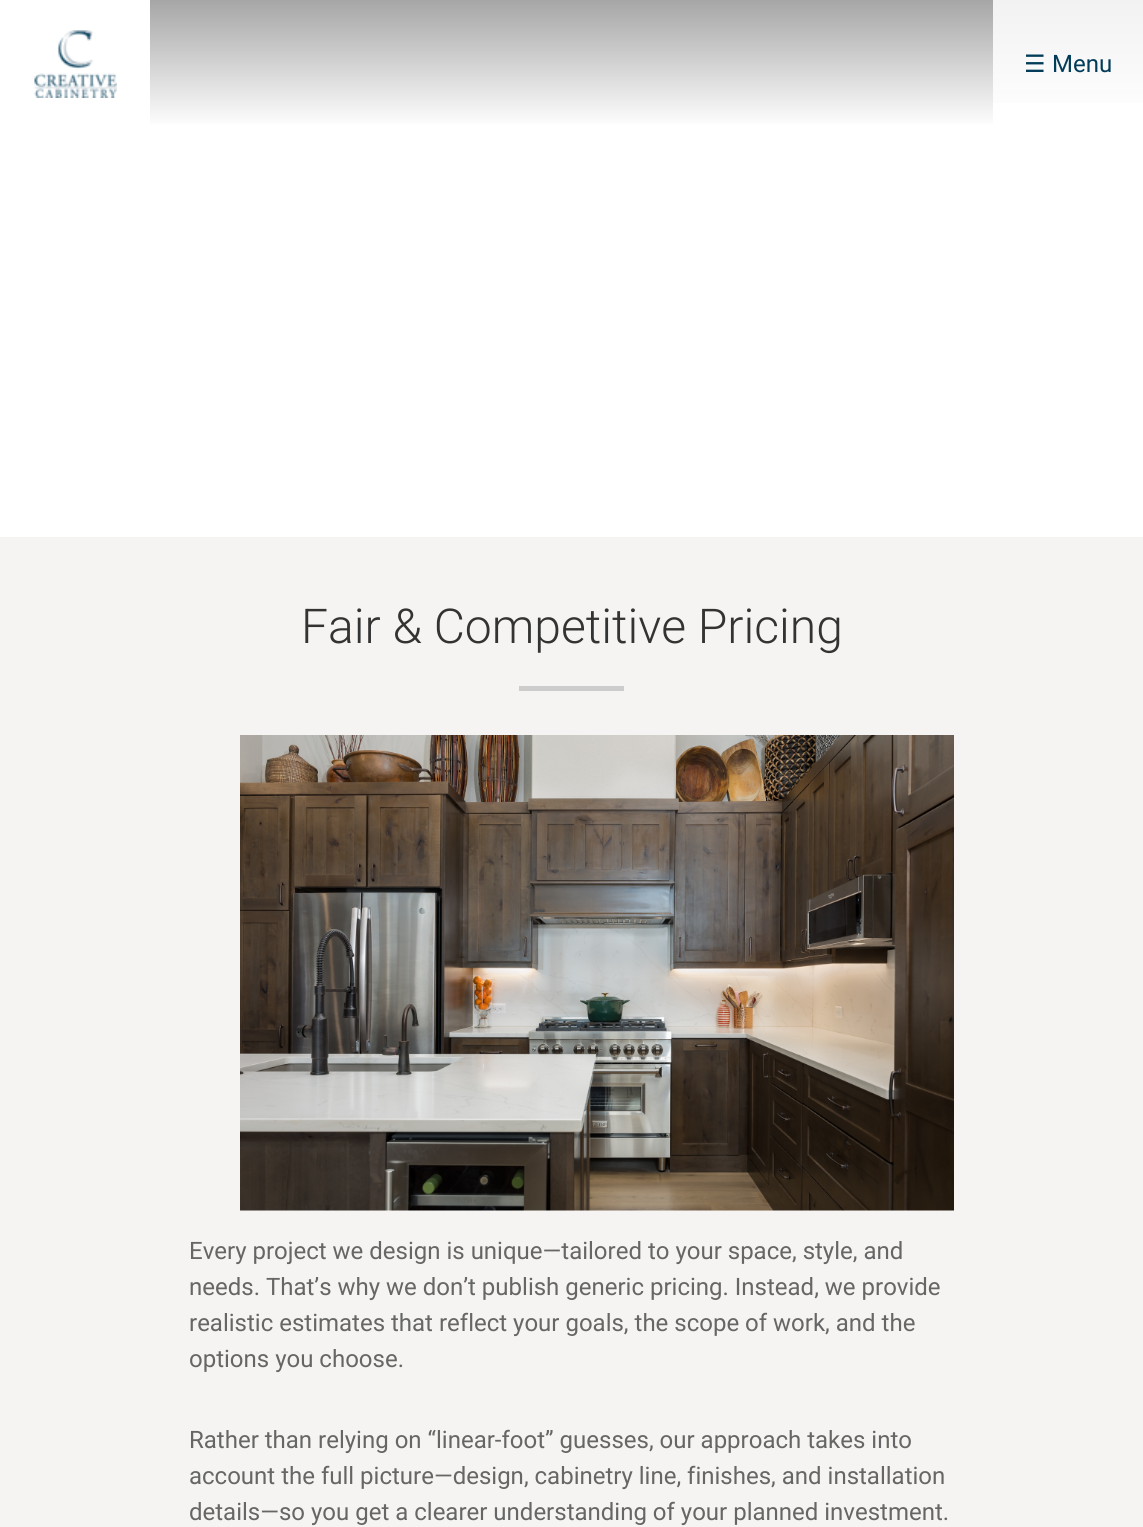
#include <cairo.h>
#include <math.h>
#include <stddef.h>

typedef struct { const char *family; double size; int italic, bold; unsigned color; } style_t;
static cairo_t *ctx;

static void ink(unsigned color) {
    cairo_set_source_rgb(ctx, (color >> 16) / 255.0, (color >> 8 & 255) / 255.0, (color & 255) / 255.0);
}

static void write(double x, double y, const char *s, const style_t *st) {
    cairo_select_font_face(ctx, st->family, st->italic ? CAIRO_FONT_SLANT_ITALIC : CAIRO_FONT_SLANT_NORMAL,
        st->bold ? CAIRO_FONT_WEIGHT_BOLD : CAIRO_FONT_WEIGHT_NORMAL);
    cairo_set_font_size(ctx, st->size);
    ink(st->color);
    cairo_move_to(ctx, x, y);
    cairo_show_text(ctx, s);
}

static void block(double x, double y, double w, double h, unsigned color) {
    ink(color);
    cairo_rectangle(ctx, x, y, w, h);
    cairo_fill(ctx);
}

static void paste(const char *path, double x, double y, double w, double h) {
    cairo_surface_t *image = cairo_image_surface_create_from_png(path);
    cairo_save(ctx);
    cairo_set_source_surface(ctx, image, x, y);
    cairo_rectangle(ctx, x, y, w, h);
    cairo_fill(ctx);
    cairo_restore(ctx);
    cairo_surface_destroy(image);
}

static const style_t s1 = {"DejaVu Sans", 24, 0, 0, 0x023c59};
static const style_t s2 = {"Roboto", 24, 0, 0, 0x023c59};
static const style_t s3 = {"Roboto Light", 48, 0, 0, 0x333333};
static const style_t s4 = {"Roboto", 24, 0, 0, 0x666666};

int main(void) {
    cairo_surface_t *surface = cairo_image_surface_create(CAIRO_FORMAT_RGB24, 1143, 1527);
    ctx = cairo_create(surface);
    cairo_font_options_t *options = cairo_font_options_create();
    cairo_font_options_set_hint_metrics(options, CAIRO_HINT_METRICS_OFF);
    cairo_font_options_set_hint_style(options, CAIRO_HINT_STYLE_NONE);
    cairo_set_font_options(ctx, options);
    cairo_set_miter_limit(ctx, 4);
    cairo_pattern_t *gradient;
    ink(0xffffff);
    cairo_paint(ctx);
    gradient = cairo_pattern_create_linear(572, 0, 572, 128);
    cairo_pattern_add_color_stop_rgba(gradient, 0, 0.651, 0.651, 0.651, 1);
    cairo_pattern_add_color_stop_rgba(gradient, 1, 1, 1, 1, 1);
    cairo_set_source(ctx, gradient);
    cairo_pattern_destroy(gradient);
    cairo_rectangle(ctx, 150, 0, 843, 124);
    cairo_fill(ctx);
    gradient = cairo_pattern_create_linear(572, 0, 572, 128);
    cairo_pattern_add_color_stop_rgba(gradient, 0, 0.949, 0.949, 0.949, 1);
    cairo_pattern_add_color_stop_rgba(gradient, 1, 1, 1, 1, 1);
    cairo_set_source(ctx, gradient);
    cairo_pattern_destroy(gradient);
    cairo_rectangle(ctx, 993, 0, 150, 103);
    cairo_fill(ctx);
    paste("pic1.png", 34, 30, 83, 68);
    write(1024, 72, "☰", &s1);
    write(1052, 72, "Menu", &s2);
    block(0, 537, 1143, 990, 0xf6f4f2);
    write(301, 643, "Fair & Competitive Pricing", &s3);
    block(519, 686, 105, 5, 0xcccccc);
    paste("pic2.png", 240, 735, 714, 476);
    write(189, 1259, "Every project we design is unique—tailored to your space, style, and", &s4);
    write(189, 1295, "needs. That’s why we don’t publish generic pricing. Instead, we provide", &s4);
    write(189, 1331, "realistic estimates that reflect your goals, the scope of work, and the", &s4);
    write(189, 1367, "options you choose.", &s4);
    write(189, 1448, "Rather than relying on “linear-foot” guesses, our approach takes into", &s4);
    write(189, 1484, "account the full picture—design, cabinetry line, finishes, and installation", &s4);
    write(189, 1520, "details—so you get a clearer understanding of your planned investment.", &s4);
    cairo_surface_write_to_png(surface, "screenshot.png");
    cairo_font_options_destroy(options);
    cairo_destroy(ctx);
    cairo_surface_destroy(surface);
    return 0;
}
